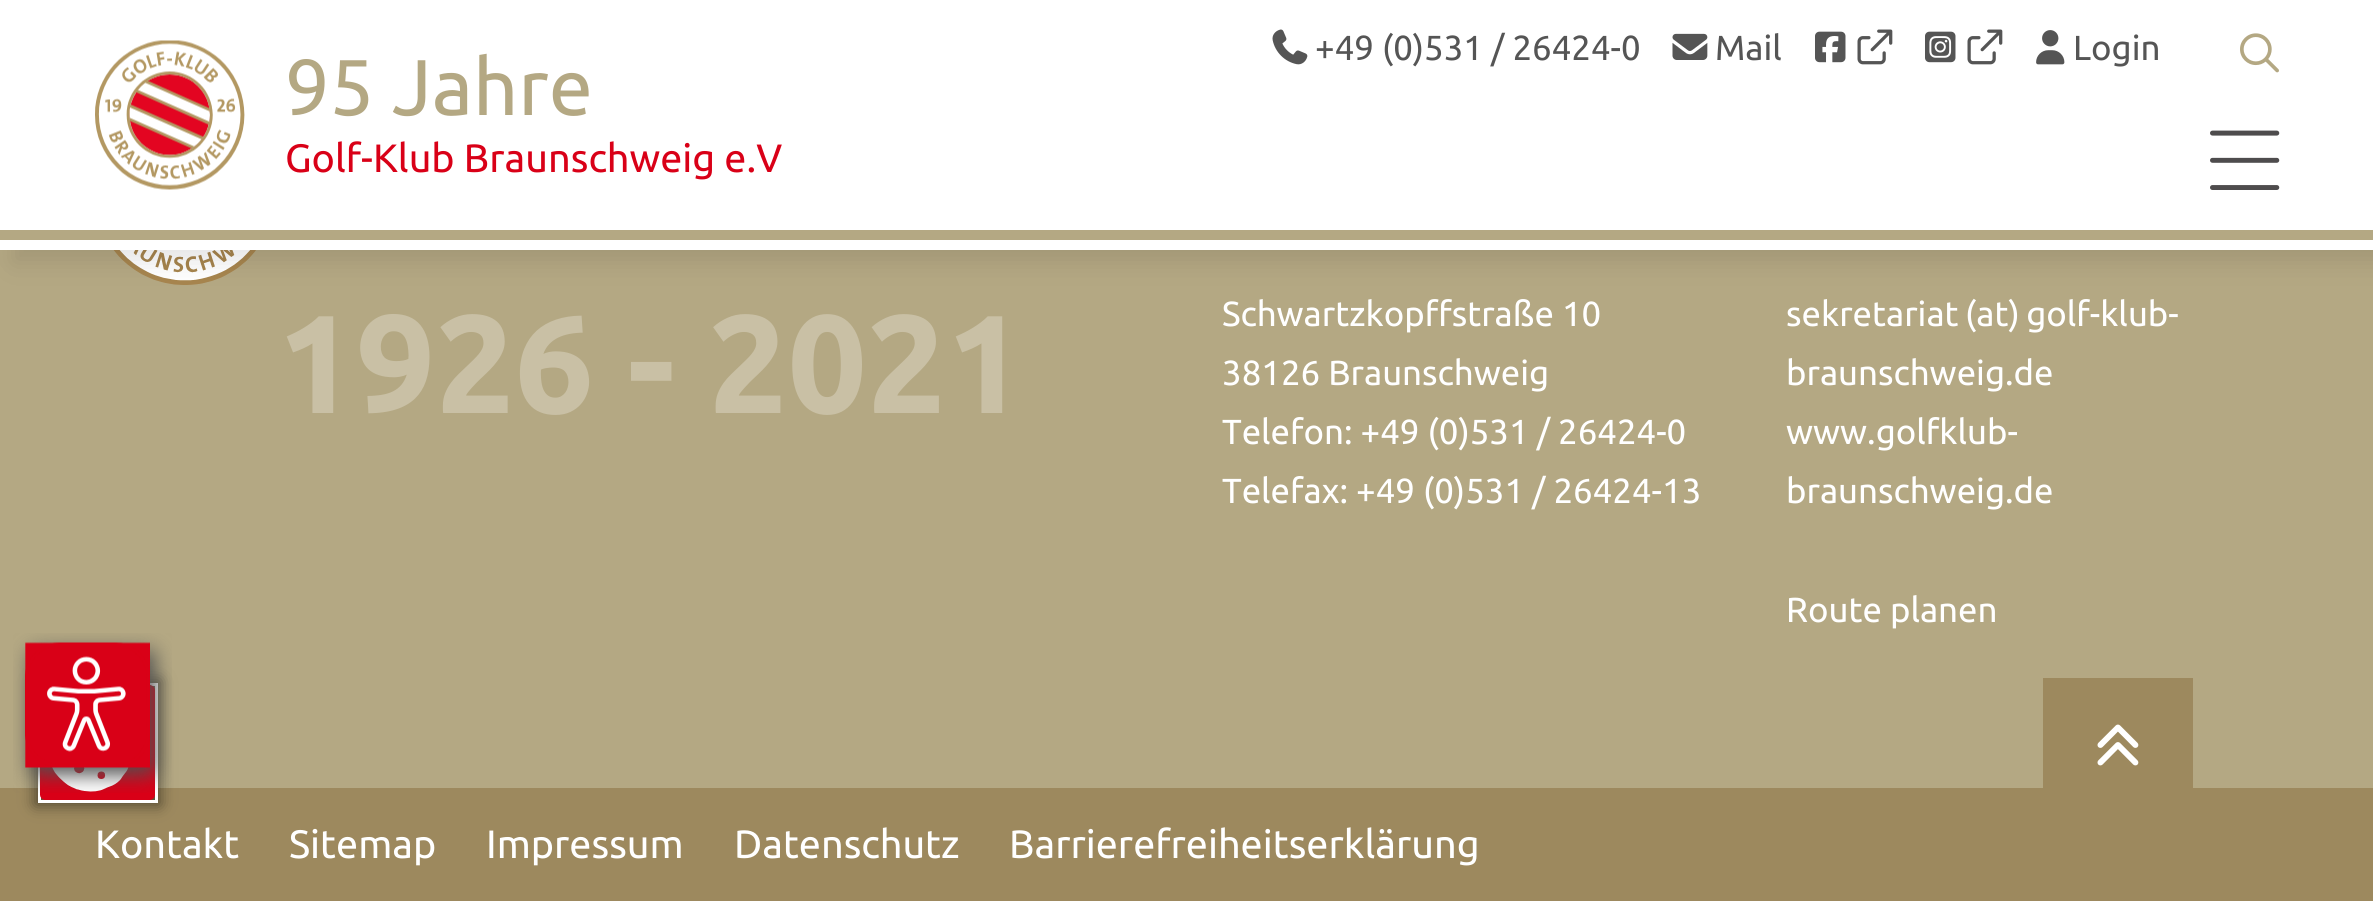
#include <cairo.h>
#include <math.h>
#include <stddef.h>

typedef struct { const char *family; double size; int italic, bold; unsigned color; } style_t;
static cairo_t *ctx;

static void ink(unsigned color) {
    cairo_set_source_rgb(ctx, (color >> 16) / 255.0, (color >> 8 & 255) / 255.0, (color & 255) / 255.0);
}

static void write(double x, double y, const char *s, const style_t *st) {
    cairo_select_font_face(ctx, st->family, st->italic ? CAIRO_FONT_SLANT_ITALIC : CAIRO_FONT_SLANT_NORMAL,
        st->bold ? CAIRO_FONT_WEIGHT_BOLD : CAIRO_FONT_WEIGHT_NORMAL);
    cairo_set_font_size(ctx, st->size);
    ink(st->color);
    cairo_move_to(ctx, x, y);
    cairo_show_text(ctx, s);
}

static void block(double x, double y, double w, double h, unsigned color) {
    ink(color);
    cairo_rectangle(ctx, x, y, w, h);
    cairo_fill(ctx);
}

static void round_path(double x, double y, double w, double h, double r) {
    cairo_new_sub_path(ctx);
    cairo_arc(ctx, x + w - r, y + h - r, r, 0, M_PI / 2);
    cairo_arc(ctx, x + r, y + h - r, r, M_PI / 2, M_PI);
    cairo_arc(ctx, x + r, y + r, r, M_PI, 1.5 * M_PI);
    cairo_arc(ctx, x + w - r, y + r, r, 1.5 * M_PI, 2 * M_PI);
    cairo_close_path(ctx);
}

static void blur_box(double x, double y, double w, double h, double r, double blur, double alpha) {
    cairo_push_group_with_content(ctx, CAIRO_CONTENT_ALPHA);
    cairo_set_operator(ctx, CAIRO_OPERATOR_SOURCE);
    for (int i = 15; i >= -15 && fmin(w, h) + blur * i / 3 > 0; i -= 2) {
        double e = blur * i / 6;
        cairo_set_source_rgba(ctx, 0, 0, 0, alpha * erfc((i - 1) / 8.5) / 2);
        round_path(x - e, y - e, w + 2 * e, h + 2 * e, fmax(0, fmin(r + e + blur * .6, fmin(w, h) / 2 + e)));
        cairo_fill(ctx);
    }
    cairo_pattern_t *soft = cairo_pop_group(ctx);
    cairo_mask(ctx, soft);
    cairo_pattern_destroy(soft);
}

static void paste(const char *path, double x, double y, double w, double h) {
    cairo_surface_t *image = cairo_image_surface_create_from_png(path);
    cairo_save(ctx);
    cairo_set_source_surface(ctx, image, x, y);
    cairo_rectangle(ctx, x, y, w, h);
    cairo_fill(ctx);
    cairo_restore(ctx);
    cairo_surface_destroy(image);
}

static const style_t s1 = {"Ubuntu", 34.8, 0, 0, 0x555555};
static const style_t s2 = {"Ubuntu", 79, 0, 0, 0xb4a883};
static const style_t s3 = {"Ubuntu", 39.6, 0, 0, 0xd90017};
static const style_t s4 = {"Ubuntu", 139.5, 0, 1, 0xc9c0a5};
static const style_t s5 = {"Ubuntu", 34.8, 0, 0, 0xffffff};
static const style_t s6 = {"Ubuntu", 39.6, 0, 0, 0xffffff};

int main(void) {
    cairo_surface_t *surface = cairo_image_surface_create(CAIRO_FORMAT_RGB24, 2373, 901);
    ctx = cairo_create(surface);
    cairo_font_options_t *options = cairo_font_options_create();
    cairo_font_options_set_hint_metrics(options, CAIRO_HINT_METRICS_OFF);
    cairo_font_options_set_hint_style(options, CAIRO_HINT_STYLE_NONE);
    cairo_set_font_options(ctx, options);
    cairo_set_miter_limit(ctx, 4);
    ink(0x9d895e);
    cairo_paint(ctx);
    block(0, 250, 2373, 538, 0xb4a883);
    paste("pic10.png", 113, 250, 143, 35);
    ink(0x000000);
    blur_box(13, 13, 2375, 250, 0, 12.5, 0.1);
    block(0, 0, 2373, 250, 0xffffff);
    paste("pic1.png", 1272, 29, 36, 36);
    write(1315, 60, "+49 (0)531 / 26424-0", &s1);
    paste("pic2.png", 1672, 33, 36, 27);
    write(1715, 60, "Mail", &s1);
    paste("pic3.png", 1815, 31, 31, 32);
    paste("pic4.png", 1857, 29, 36, 36);
    paste("pic5.png", 1925, 31, 31, 32);
    paste("pic4.png", 1967, 29, 36, 36);
    paste("pic6.png", 2036, 30, 29, 35);
    write(2073, 60, "Login", &s1);
    paste("pic7.png", 2240, 33, 39, 40);
    paste("pic8.png", 95, 40, 150, 150);
    write(285, 115, "95 Jahre", &s2);
    write(285, 172, "Golf-Klub Braunschweig e.V", &s3);
    paste("pic9.png", 2210, 130, 70, 60);
    block(0, 230, 2373, 10, 0xb4a883);
    write(277, 413, "1926 - 2021", &s4);
    write(1222, 326, "Schwartzkopffstraße 10", &s5);
    write(1222, 385, "38126 Braunschweig", &s5);
    write(1222, 444, "Telefon: +49 (0)531 / 26424-0", &s5);
    write(1222, 503, "Telefax: +49 (0)531 / 26424-13", &s5);
    write(1786, 326, "sekretariat (at) golf-klub-", &s5);
    write(1786, 385, "braunschweig.de", &s5);
    write(1786, 444, "www.golfklub-", &s5);
    write(1786, 503, "braunschweig.de", &s5);
    write(1786, 622, "Route planen", &s5);
    block(2043, 678, 150, 110, 0x9d895e);
    paste("pic11.png", 2097, 724, 42, 42);
    ink(0x000000);
    blur_box(35, 680, 125, 125, 0, 7.5, 0.5);
    cairo_rectangle(ctx, 39.5, 684.5, 117, 117);
    ink(0xffffff);
    cairo_set_line_width(ctx, 3);
    cairo_stroke(ctx);
    paste("pic13.png", 40, 685, 115, 115);
    paste("pic12.png", 13, 633, 159, 160);
    write(95, 858, "Kontakt", &s6);
    write(289, 858, "Sitemap", &s6);
    write(486, 858, "Impressum", &s6);
    write(734, 858, "Datenschutz", &s6);
    write(1009, 858, "Barrierefreiheitserklärung", &s6);
    cairo_surface_write_to_png(surface, "screenshot.png");
    cairo_font_options_destroy(options);
    cairo_destroy(ctx);
    cairo_surface_destroy(surface);
    return 0;
}
